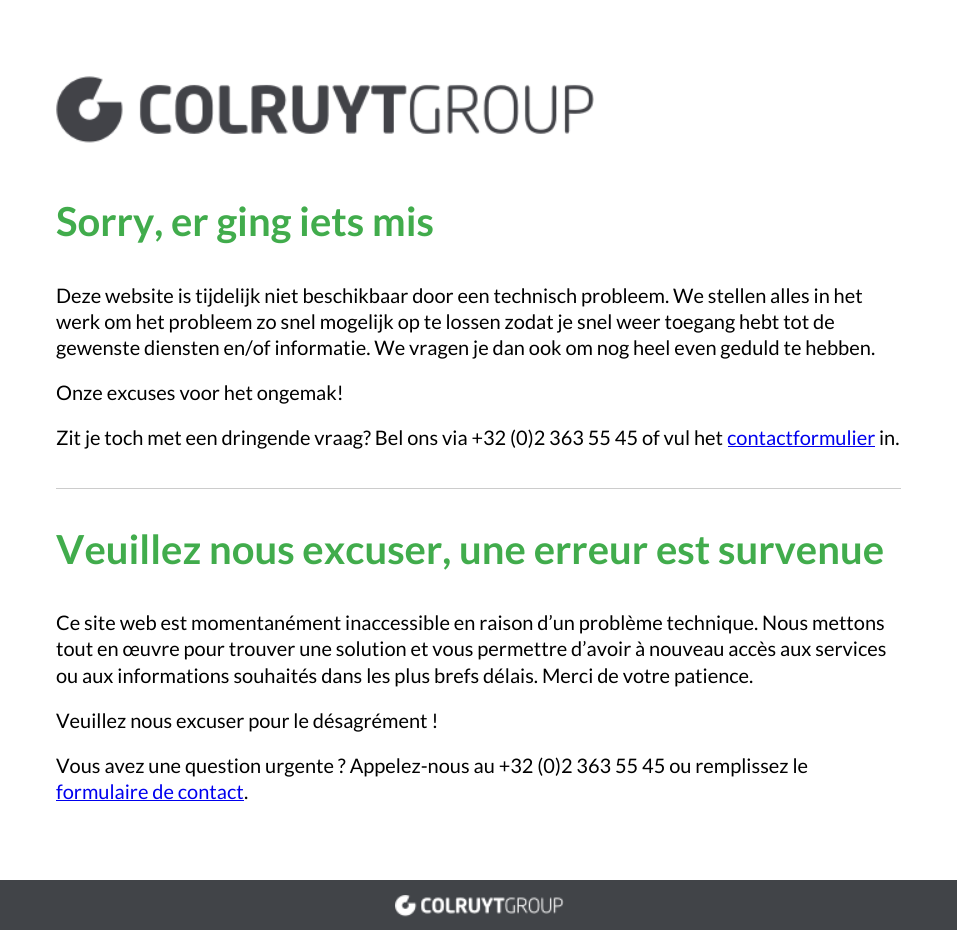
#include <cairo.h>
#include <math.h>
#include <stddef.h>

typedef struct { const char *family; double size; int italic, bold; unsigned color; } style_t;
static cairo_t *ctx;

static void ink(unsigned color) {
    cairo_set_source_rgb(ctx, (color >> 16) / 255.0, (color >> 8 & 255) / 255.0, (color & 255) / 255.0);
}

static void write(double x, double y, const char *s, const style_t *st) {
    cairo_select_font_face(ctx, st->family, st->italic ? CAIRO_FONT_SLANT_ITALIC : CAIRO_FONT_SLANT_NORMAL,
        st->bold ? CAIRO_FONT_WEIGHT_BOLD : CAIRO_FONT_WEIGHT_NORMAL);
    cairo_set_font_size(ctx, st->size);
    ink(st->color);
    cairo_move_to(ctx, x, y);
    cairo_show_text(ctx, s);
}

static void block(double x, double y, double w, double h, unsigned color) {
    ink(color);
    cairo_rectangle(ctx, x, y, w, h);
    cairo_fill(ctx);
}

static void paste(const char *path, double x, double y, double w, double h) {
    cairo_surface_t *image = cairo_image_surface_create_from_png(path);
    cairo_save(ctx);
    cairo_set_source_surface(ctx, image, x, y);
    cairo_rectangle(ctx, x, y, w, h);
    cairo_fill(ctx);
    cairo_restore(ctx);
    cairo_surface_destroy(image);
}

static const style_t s1 = {"Lato", 40, 0, 1, 0x41ac4c};
static const style_t s2 = {"Lato", 20, 0, 0, 0x000000};
static const style_t s3 = {"Lato", 20, 0, 0, 0x0000ee};

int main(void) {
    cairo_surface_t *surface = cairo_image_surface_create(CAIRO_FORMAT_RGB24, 957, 930);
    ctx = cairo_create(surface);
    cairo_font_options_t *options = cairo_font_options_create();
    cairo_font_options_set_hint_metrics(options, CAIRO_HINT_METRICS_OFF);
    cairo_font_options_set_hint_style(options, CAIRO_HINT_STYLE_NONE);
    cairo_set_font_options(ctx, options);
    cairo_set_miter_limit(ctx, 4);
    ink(0xffffff);
    cairo_paint(ctx);
    paste("pic1.png", 56, 76, 538, 67);
    write(56, 236, "Sorry, er ging iets mis", &s1);
    write(56, 303, "Deze website is tijdelijk niet beschikbaar door een technisch probleem. We stellen alles in het", &s2);
    write(56, 329, "werk om het probleem zo snel mogelijk op te lossen zodat je snel weer toegang hebt tot de", &s2);
    write(56, 355, "gewenste diensten en/of informatie. We vragen je dan ook om nog heel even geduld te hebben.", &s2);
    write(56, 400, "Onze excuses voor het ongemak!", &s2);
    write(56, 445, "Zit je toch met een dringende vraag? Bel ons via +32 (0)2 363 55 45 of vul het", &s2);
    write(727, 445, "contactformulier", &s3);
    block(728, 446, 147, 1, 0x0000ee);
    write(879, 445, "in.", &s2);
    block(56, 488, 845, 1, 0xcccccc);
    write(56, 564, "Veuillez nous excuser, une erreur est survenue", &s1);
    write(56, 630, "Ce site web est momentanément inaccessible en raison d’un problème technique. Nous mettons", &s2);
    write(56, 656, "tout en œuvre pour trouver une solution et vous permettre d’avoir à nouveau accès aux services", &s2);
    write(56, 683, "ou aux informations souhaités dans les plus brefs délais. Merci de votre patience.", &s2);
    write(56, 728, "Veuillez nous excuser pour le désagrément !", &s2);
    write(56, 773, "Vous avez une question urgente ? Appelez-nous au +32 (0)2 363 55 45 ou remplissez le", &s2);
    write(56, 799, "formulaire de contact", &s3);
    block(56, 800, 188, 1, 0x0000ee);
    write(244, 799, ".", &s2);
    block(0, 880, 957, 50, 0x414448);
    paste("pic2.png", 395, 895, 169, 22);
    cairo_surface_write_to_png(surface, "screenshot.png");
    cairo_font_options_destroy(options);
    cairo_destroy(ctx);
    cairo_surface_destroy(surface);
    return 0;
}
